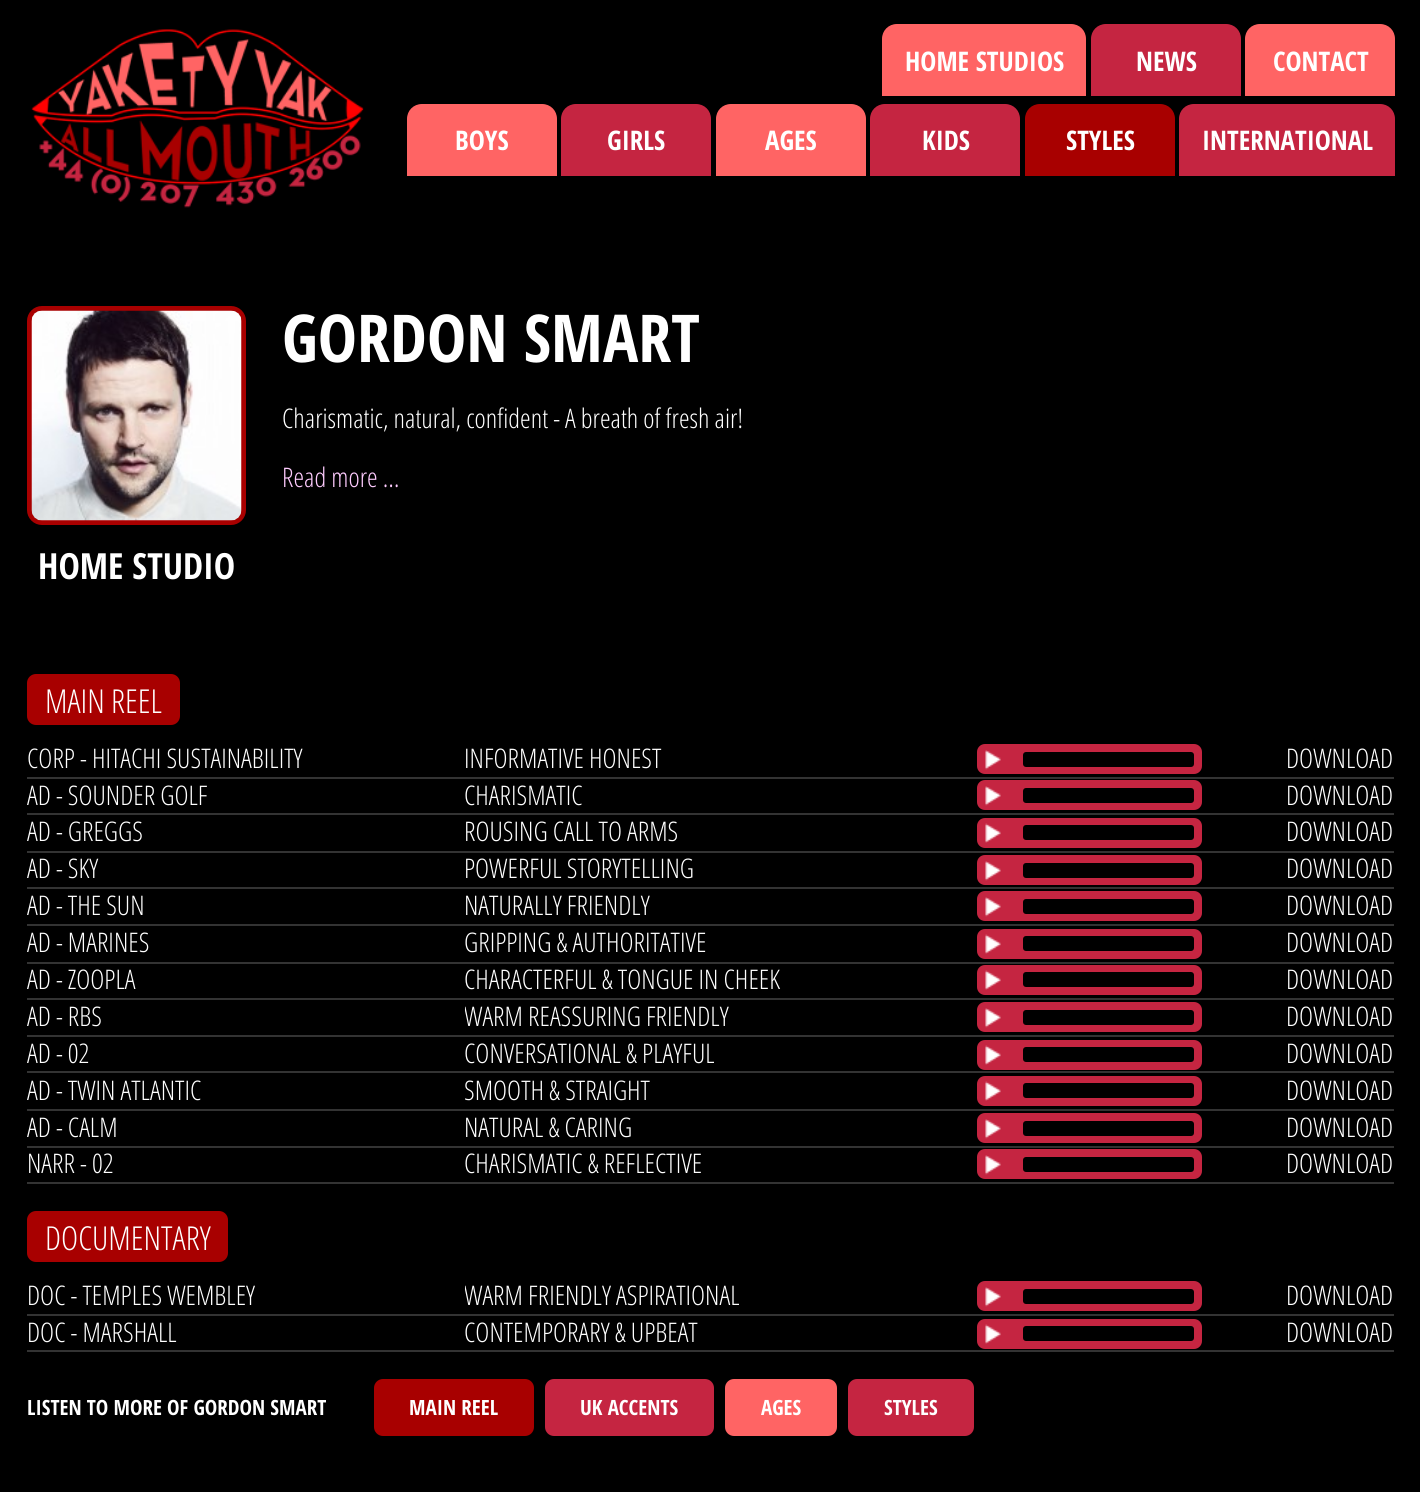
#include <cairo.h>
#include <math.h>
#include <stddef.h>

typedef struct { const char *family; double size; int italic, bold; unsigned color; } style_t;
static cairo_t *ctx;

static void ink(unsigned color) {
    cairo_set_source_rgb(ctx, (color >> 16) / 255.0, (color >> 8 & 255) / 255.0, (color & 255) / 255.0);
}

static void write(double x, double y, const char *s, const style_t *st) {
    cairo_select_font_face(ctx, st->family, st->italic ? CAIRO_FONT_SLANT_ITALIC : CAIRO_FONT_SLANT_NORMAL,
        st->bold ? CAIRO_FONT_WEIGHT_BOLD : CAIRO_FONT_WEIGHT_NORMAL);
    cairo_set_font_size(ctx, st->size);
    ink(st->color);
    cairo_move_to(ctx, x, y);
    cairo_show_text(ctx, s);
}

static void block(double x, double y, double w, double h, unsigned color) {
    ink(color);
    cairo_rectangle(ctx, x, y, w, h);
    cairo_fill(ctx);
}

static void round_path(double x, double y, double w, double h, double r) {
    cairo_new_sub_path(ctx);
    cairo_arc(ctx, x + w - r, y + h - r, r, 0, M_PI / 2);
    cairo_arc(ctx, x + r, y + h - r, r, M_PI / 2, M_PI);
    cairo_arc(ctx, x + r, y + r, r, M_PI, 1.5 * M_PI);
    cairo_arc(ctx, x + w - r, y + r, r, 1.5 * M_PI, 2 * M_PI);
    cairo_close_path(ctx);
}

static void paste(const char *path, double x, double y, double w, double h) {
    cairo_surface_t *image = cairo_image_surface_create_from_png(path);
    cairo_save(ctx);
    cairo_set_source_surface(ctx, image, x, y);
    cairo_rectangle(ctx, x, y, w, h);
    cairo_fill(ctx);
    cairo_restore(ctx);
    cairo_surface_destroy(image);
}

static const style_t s1 = {"Open Sans Condensed", 27, 0, 1, 0xffffff};
static const style_t s2 = {"Open Sans Condensed", 66, 0, 1, 0xffffff};
static const style_t s3 = {"Open Sans Condensed Light", 27, 0, 0, 0xffffff};
static const style_t s4 = {"Open Sans Condensed Light", 27, 0, 0, 0xffccff};
static const style_t s5 = {"Open Sans Condensed", 36, 0, 1, 0xffffff};
static const style_t s6 = {"Open Sans Condensed Light", 33, 0, 0, 0xffffff};
static const style_t s7 = {"Open Sans Condensed", 21, 0, 1, 0xffffff};

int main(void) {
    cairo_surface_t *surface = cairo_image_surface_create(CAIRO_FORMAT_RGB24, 1420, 1492);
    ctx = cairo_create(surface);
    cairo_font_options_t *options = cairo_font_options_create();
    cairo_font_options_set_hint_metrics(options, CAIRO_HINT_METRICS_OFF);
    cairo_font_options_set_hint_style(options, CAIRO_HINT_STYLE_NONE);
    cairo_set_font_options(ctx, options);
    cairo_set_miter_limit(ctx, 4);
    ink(0x000000);
    cairo_paint(ctx);
    paste("pic1.png", 31, 29, 333, 179);
    ink(0xff6464);
    cairo_new_path(ctx);
    cairo_move_to(ctx, 897, 24);
    cairo_line_to(ctx, 1071, 24);
    cairo_curve_to(ctx, 1079.5, 24, 1086, 30.5, 1086, 39);
    cairo_line_to(ctx, 1086, 96);
    cairo_line_to(ctx, 882, 96);
    cairo_line_to(ctx, 882, 39);
    cairo_curve_to(ctx, 882, 30.5, 888.5, 24, 897, 24);
    cairo_close_path(ctx);
    cairo_fill(ctx);
    write(905, 71, "HOME STUDIOS", &s1);
    ink(0xc52541);
    cairo_new_path(ctx);
    cairo_move_to(ctx, 1106, 24);
    cairo_line_to(ctx, 1226, 24);
    cairo_curve_to(ctx, 1234.5, 24, 1241, 30.5, 1241, 39);
    cairo_line_to(ctx, 1241, 96);
    cairo_line_to(ctx, 1091, 96);
    cairo_line_to(ctx, 1091, 39);
    cairo_curve_to(ctx, 1091, 30.5, 1097.5, 24, 1106, 24);
    cairo_close_path(ctx);
    cairo_fill(ctx);
    write(1136, 71, "NEWS", &s1);
    ink(0xff6464);
    cairo_new_path(ctx);
    cairo_move_to(ctx, 1260, 24);
    cairo_line_to(ctx, 1380, 24);
    cairo_curve_to(ctx, 1388.5, 24, 1395, 30.5, 1395, 39);
    cairo_line_to(ctx, 1395, 96);
    cairo_line_to(ctx, 1245, 96);
    cairo_line_to(ctx, 1245, 39);
    cairo_curve_to(ctx, 1245, 30.5, 1251.5, 24, 1260, 24);
    cairo_close_path(ctx);
    cairo_fill(ctx);
    write(1273, 71, "CONTACT", &s1);
    ink(0xff6464);
    cairo_new_path(ctx);
    cairo_move_to(ctx, 422, 104);
    cairo_line_to(ctx, 542, 104);
    cairo_curve_to(ctx, 550.5, 104, 557, 110.5, 557, 119);
    cairo_line_to(ctx, 557, 176);
    cairo_line_to(ctx, 407, 176);
    cairo_line_to(ctx, 407, 119);
    cairo_curve_to(ctx, 407, 110.5, 413.5, 104, 422, 104);
    cairo_close_path(ctx);
    cairo_fill(ctx);
    write(455, 150, "BOYS", &s1);
    ink(0xc52541);
    cairo_new_path(ctx);
    cairo_move_to(ctx, 576, 104);
    cairo_line_to(ctx, 696, 104);
    cairo_curve_to(ctx, 704.5, 104, 711, 110.5, 711, 119);
    cairo_line_to(ctx, 711, 176);
    cairo_line_to(ctx, 561, 176);
    cairo_line_to(ctx, 561, 119);
    cairo_curve_to(ctx, 561, 110.5, 567.5, 104, 576, 104);
    cairo_close_path(ctx);
    cairo_fill(ctx);
    write(607, 150, "GIRLS", &s1);
    ink(0xff6464);
    cairo_new_path(ctx);
    cairo_move_to(ctx, 731, 104);
    cairo_line_to(ctx, 851, 104);
    cairo_curve_to(ctx, 859.5, 104, 866, 110.5, 866, 119);
    cairo_line_to(ctx, 866, 176);
    cairo_line_to(ctx, 716, 176);
    cairo_line_to(ctx, 716, 119);
    cairo_curve_to(ctx, 716, 110.5, 722.5, 104, 731, 104);
    cairo_close_path(ctx);
    cairo_fill(ctx);
    write(765, 150, "AGES", &s1);
    ink(0xc52541);
    cairo_new_path(ctx);
    cairo_move_to(ctx, 885, 104);
    cairo_line_to(ctx, 1005, 104);
    cairo_curve_to(ctx, 1013.5, 104, 1020, 110.5, 1020, 119);
    cairo_line_to(ctx, 1020, 176);
    cairo_line_to(ctx, 870, 176);
    cairo_line_to(ctx, 870, 119);
    cairo_curve_to(ctx, 870, 110.5, 876.5, 104, 885, 104);
    cairo_close_path(ctx);
    cairo_fill(ctx);
    write(922, 150, "KIDS", &s1);
    ink(0xa80000);
    cairo_new_path(ctx);
    cairo_move_to(ctx, 1040, 104);
    cairo_line_to(ctx, 1160, 104);
    cairo_curve_to(ctx, 1168.5, 104, 1175, 110.5, 1175, 119);
    cairo_line_to(ctx, 1175, 176);
    cairo_line_to(ctx, 1025, 176);
    cairo_line_to(ctx, 1025, 119);
    cairo_curve_to(ctx, 1025, 110.5, 1031.5, 104, 1040, 104);
    cairo_close_path(ctx);
    cairo_fill(ctx);
    write(1066, 150, "STYLES", &s1);
    ink(0xc52541);
    cairo_new_path(ctx);
    cairo_move_to(ctx, 1194, 104);
    cairo_line_to(ctx, 1380, 104);
    cairo_curve_to(ctx, 1388.5, 104, 1395, 110.5, 1395, 119);
    cairo_line_to(ctx, 1395, 176);
    cairo_line_to(ctx, 1179, 176);
    cairo_line_to(ctx, 1179, 119);
    cairo_curve_to(ctx, 1179, 110.5, 1185.5, 104, 1194, 104);
    cairo_close_path(ctx);
    cairo_fill(ctx);
    write(1202, 150, "INTERNATIONAL", &s1);
    write(282, 362, "GORDON SMART", &s2);
    write(282, 428, "Charismatic, natural, confident - A breath of fresh air!", &s3);
    write(282, 487, "Read more …", &s4);
    round_path(29.5, 308.5, 214, 214, 12.5);
    ink(0xa80000);
    cairo_set_line_width(ctx, 5);
    cairo_stroke(ctx);
    paste("pic2.png", 31, 310, 211, 211);
    write(38, 579, "HOME STUDIO", &s5);
    ink(0xa80000);
    round_path(27, 674, 153, 51, 9);
    cairo_fill(ctx);
    write(45, 713, "MAIN REEL", &s6);
    block(27, 777, 1367, 2, 0x333333);
    write(27, 768, "CORP - HITACHI SUSTAINABILITY", &s3);
    write(464, 768, "INFORMATIVE HONEST", &s3);
    ink(0xc52541);
    round_path(977, 744, 225, 30, 8);
    cairo_fill(ctx);
    paste("pic3.png", 985, 750, 16, 20);
    ink(0x000000);
    round_path(1023, 752, 171, 15, 3);
    cairo_fill(ctx);
    write(1286, 768, "DOWNLOAD", &s3);
    block(27, 813, 1367, 2, 0x333333);
    write(27, 805, "AD - SOUNDER GOLF", &s3);
    write(464, 805, "CHARISMATIC", &s3);
    ink(0xc52541);
    round_path(977, 780, 225, 30, 8);
    cairo_fill(ctx);
    paste("pic3.png", 985, 786, 16, 20);
    ink(0x000000);
    round_path(1023, 788, 171, 15, 3);
    cairo_fill(ctx);
    write(1286, 805, "DOWNLOAD", &s3);
    block(27, 851, 1367, 2, 0x333333);
    write(27, 841, "AD - GREGGS", &s3);
    write(464, 841, "ROUSING CALL TO ARMS", &s3);
    ink(0xc52541);
    round_path(977, 818, 225, 30, 8);
    cairo_fill(ctx);
    paste("pic4.png", 985, 823, 16, 20);
    ink(0x000000);
    round_path(1023, 825, 171, 15, 3);
    cairo_fill(ctx);
    write(1286, 841, "DOWNLOAD", &s3);
    block(27, 887, 1367, 2, 0x333333);
    write(27, 878, "AD - SKY", &s3);
    write(464, 878, "POWERFUL STORYTELLING", &s3);
    ink(0xc52541);
    round_path(977, 855, 225, 30, 8);
    cairo_fill(ctx);
    paste("pic3.png", 985, 861, 16, 20);
    ink(0x000000);
    round_path(1023, 863, 171, 15, 3);
    cairo_fill(ctx);
    write(1286, 878, "DOWNLOAD", &s3);
    block(27, 924, 1367, 2, 0x333333);
    write(27, 915, "AD - THE SUN", &s3);
    write(464, 915, "NATURALLY FRIENDLY", &s3);
    ink(0xc52541);
    round_path(977, 891, 225, 30, 8);
    cairo_fill(ctx);
    paste("pic3.png", 985, 897, 16, 20);
    ink(0x000000);
    round_path(1023, 899, 171, 15, 3);
    cairo_fill(ctx);
    write(1286, 915, "DOWNLOAD", &s3);
    block(27, 962, 1367, 2, 0x333333);
    write(27, 952, "AD - MARINES", &s3);
    write(464, 952, "GRIPPING & AUTHORITATIVE", &s3);
    ink(0xc52541);
    round_path(977, 929, 225, 30, 8);
    cairo_fill(ctx);
    paste("pic4.png", 985, 934, 16, 20);
    ink(0x000000);
    round_path(1023, 936, 171, 15, 3);
    cairo_fill(ctx);
    write(1286, 952, "DOWNLOAD", &s3);
    block(27, 998, 1367, 2, 0x333333);
    write(27, 989, "AD - ZOOPLA", &s3);
    write(464, 989, "CHARACTERFUL & TONGUE IN CHEEK", &s3);
    ink(0xc52541);
    round_path(977, 965, 225, 30, 8);
    cairo_fill(ctx);
    paste("pic4.png", 985, 970, 16, 20);
    ink(0x000000);
    round_path(1023, 972, 171, 15, 3);
    cairo_fill(ctx);
    write(1286, 989, "DOWNLOAD", &s3);
    block(27, 1035, 1367, 2, 0x333333);
    write(27, 1026, "AD - RBS", &s3);
    cairo_save(ctx);
    cairo_rectangle(ctx, 465, 1002, 437, 27);
    cairo_clip(ctx);
    write(464, 1026, "WARM REASSURING FRIENDLY", &s3);
    cairo_restore(ctx);
    ink(0xc52541);
    round_path(977, 1002, 225, 30, 8);
    cairo_fill(ctx);
    paste("pic3.png", 985, 1008, 16, 20);
    ink(0x000000);
    round_path(1023, 1010, 171, 15, 3);
    cairo_fill(ctx);
    write(1286, 1026, "DOWNLOAD", &s3);
    block(27, 1071, 1367, 2, 0x333333);
    write(27, 1063, "AD - 02", &s3);
    write(464, 1063, "CONVERSATIONAL & PLAYFUL", &s3);
    ink(0xc52541);
    round_path(977, 1040, 225, 30, 8);
    cairo_fill(ctx);
    paste("pic4.png", 985, 1045, 16, 20);
    ink(0x000000);
    round_path(1023, 1047, 171, 15, 3);
    cairo_fill(ctx);
    write(1286, 1063, "DOWNLOAD", &s3);
    block(27, 1109, 1367, 2, 0x333333);
    write(27, 1100, "AD - TWIN ATLANTIC", &s3);
    write(464, 1100, "SMOOTH & STRAIGHT", &s3);
    ink(0xc52541);
    round_path(977, 1076, 225, 30, 8);
    cairo_fill(ctx);
    paste("pic4.png", 985, 1081, 16, 20);
    ink(0x000000);
    round_path(1023, 1083, 171, 15, 3);
    cairo_fill(ctx);
    write(1286, 1100, "DOWNLOAD", &s3);
    block(27, 1146, 1367, 2, 0x333333);
    write(27, 1137, "AD - CALM", &s3);
    write(464, 1137, "NATURAL & CARING", &s3);
    ink(0xc52541);
    round_path(977, 1113, 225, 30, 8);
    cairo_fill(ctx);
    paste("pic3.png", 985, 1119, 16, 20);
    ink(0x000000);
    round_path(1023, 1121, 171, 15, 3);
    cairo_fill(ctx);
    write(1286, 1137, "DOWNLOAD", &s3);
    block(27, 1182, 1367, 2, 0x333333);
    write(27, 1173, "NARR - 02", &s3);
    write(464, 1173, "CHARISMATIC & REFLECTIVE", &s3);
    ink(0xc52541);
    round_path(977, 1149, 225, 30, 8);
    cairo_fill(ctx);
    paste("pic3.png", 985, 1155, 16, 20);
    ink(0x000000);
    round_path(1023, 1157, 171, 15, 3);
    cairo_fill(ctx);
    write(1286, 1173, "DOWNLOAD", &s3);
    ink(0xa80000);
    round_path(27, 1211, 201, 51, 9);
    cairo_fill(ctx);
    write(45, 1250, "DOCUMENTARY", &s6);
    block(27, 1314, 1367, 2, 0x333333);
    write(27, 1305, "DOC - TEMPLES WEMBLEY", &s3);
    cairo_save(ctx);
    cairo_rectangle(ctx, 465, 1281, 437, 27);
    cairo_clip(ctx);
    write(464, 1305, "WARM FRIENDLY ASPIRATIONAL", &s3);
    cairo_restore(ctx);
    ink(0xc52541);
    round_path(977, 1281, 225, 30, 8);
    cairo_fill(ctx);
    paste("pic3.png", 985, 1287, 16, 20);
    ink(0x000000);
    round_path(1023, 1289, 171, 15, 3);
    cairo_fill(ctx);
    write(1286, 1305, "DOWNLOAD", &s3);
    block(27, 1350, 1367, 2, 0x333333);
    write(27, 1342, "DOC - MARSHALL", &s3);
    write(464, 1342, "CONTEMPORARY & UPBEAT", &s3);
    ink(0xc52541);
    round_path(977, 1319, 225, 30, 8);
    cairo_fill(ctx);
    paste("pic4.png", 985, 1324, 16, 20);
    ink(0x000000);
    round_path(1023, 1326, 171, 15, 3);
    cairo_fill(ctx);
    write(1286, 1342, "DOWNLOAD", &s3);
    write(27, 1415, "LISTEN TO MORE OF GORDON SMART", &s7);
    ink(0xa80000);
    round_path(374, 1379, 160, 57, 9);
    cairo_fill(ctx);
    write(409, 1415, "MAIN REEL", &s7);
    ink(0xc52541);
    round_path(545, 1379, 169, 57, 9);
    cairo_fill(ctx);
    write(580, 1415, "UK ACCENTS", &s7);
    ink(0xff6464);
    round_path(725, 1379, 112, 57, 9);
    cairo_fill(ctx);
    write(761, 1415, "AGES", &s7);
    ink(0xc52541);
    round_path(848, 1379, 126, 57, 9);
    cairo_fill(ctx);
    write(884, 1415, "STYLES", &s7);
    cairo_surface_write_to_png(surface, "screenshot.png");
    cairo_font_options_destroy(options);
    cairo_destroy(ctx);
    cairo_surface_destroy(surface);
    return 0;
}
